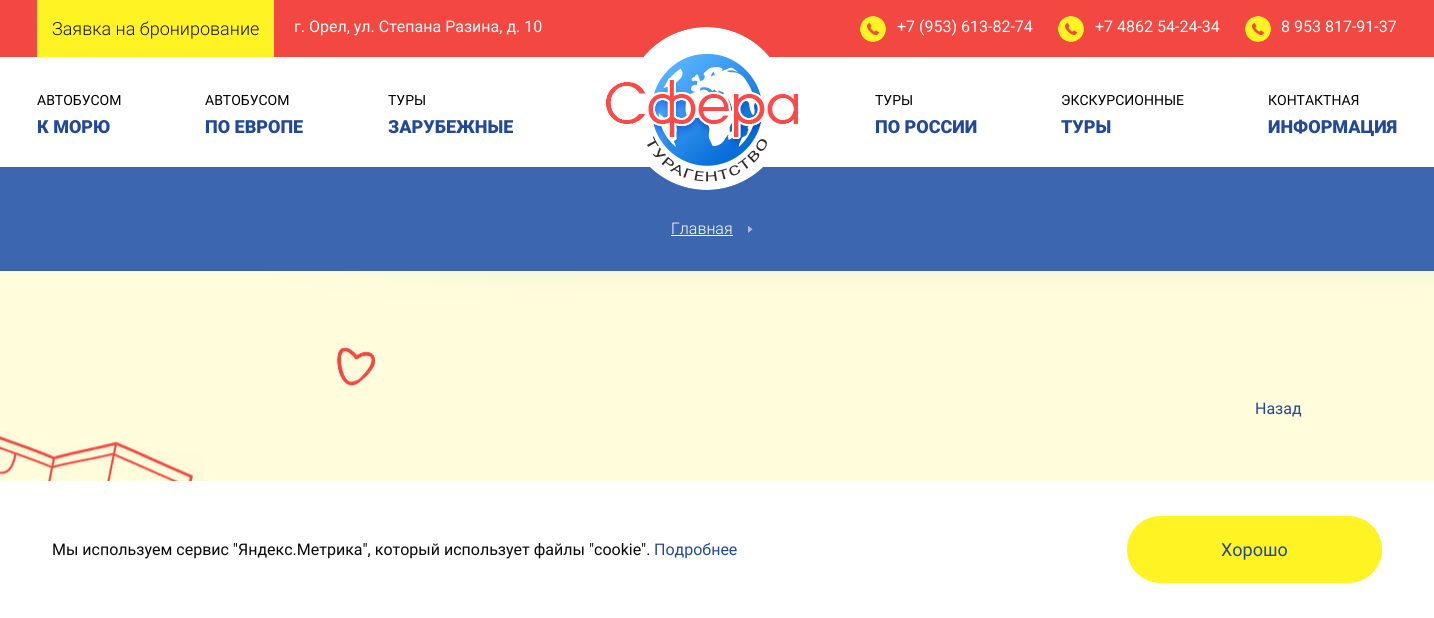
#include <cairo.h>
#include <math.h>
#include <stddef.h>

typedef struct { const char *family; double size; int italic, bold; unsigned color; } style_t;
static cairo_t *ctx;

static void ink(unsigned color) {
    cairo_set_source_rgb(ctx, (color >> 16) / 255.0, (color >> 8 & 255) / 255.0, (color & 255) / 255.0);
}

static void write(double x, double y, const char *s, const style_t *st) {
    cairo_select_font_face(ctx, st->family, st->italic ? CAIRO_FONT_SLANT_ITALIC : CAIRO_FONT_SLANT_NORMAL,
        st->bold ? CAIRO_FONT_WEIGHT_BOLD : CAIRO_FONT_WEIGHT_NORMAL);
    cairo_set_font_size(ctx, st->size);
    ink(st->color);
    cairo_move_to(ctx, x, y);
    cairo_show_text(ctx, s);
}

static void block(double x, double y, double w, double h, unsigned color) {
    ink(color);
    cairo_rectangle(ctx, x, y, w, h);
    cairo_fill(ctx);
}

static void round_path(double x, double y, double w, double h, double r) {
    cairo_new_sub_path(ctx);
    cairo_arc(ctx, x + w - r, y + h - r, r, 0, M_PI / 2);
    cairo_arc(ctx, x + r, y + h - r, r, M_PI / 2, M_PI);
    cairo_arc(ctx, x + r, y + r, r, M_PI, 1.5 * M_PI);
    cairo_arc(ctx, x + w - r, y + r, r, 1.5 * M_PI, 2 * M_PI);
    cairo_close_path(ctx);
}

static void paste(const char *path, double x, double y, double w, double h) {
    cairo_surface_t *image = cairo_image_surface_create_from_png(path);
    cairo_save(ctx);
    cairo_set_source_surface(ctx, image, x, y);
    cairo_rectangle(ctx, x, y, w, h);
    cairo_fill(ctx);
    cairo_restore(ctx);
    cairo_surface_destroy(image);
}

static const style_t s1 = {"Roboto Light", 18, 0, 0, 0x191919};
static const style_t s2 = {"Roboto", 16, 0, 0, 0xffffff};
static const style_t s3 = {"Roboto", 14, 0, 0, 0x000000};
static const style_t s4 = {"Roboto Black", 18, 0, 0, 0x224899};
static const style_t s5 = {"Roboto Light", 16, 0, 0, 0xffffff};
static const style_t s6 = {"Roboto", 16, 0, 0, 0x224899};
static const style_t s7 = {"Roboto", 16, 0, 0, 0x0a0a0a};
static const style_t s8 = {"Roboto", 18, 0, 0, 0x224899};

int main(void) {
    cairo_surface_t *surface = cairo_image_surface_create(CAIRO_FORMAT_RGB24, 1434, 618);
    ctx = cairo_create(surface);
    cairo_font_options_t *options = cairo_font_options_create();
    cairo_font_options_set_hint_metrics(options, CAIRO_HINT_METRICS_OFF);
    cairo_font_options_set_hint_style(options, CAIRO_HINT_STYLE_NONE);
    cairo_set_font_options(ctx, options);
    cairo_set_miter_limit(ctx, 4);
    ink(0xf24841);
    cairo_paint(ctx);
    block(37, 0, 237, 57, 0xfff324);
    write(52, 35, "Заявка на бронирование", &s1);
    write(294, 32, "г. Орел, ул. Cтепана Разина, д. 10", &s2);
    paste("pic1.png", 860, 16, 26, 26);
    write(897, 32, "+7 (953) 613-82-74", &s2);
    paste("pic1.png", 1058, 16, 26, 26);
    write(1095, 32, "+7 4862 54-24-34", &s2);
    paste("pic1.png", 1245, 16, 26, 26);
    write(1281, 32, "8 953 817-91-37", &s2);
    block(0, 57, 1434, 110, 0xffffff);
    block(0, 167, 1434, 104, 0x3c67b0);
    paste("pic2.png", 606, 27, 192, 163);
    write(37, 105, "АВТОБУСОМ", &s3);
    write(37, 133, "К МОРЮ", &s4);
    write(205, 105, "АВТОБУСОМ", &s3);
    write(205, 133, "ПО ЕВРОПЕ", &s4);
    write(388, 105, "ТУРЫ", &s3);
    write(388, 133, "ЗАРУБЕЖНЫЕ", &s4);
    write(875, 105, "ТУРЫ", &s3);
    write(875, 133, "ПО РОССИИ", &s4);
    write(1061, 105, "ЭКСКУРСИОННЫЕ", &s3);
    write(1061, 133, "ТУРЫ", &s4);
    write(1268, 105, "КОНТАКТНАЯ", &s3);
    write(1268, 133, "ИНФОРМАЦИЯ", &s4);
    write(671, 234, "Главная", &s5);
    block(671, 235, 62, 1, 0xffffff);
    paste("pic3.png", 748, 225, 5, 8);
    paste("pic4.png", 0, 271, 1434, 210);
    write(1255, 414, "Назад", &s6);
    block(0, 481, 1434, 137, 0xffffff);
    write(52, 555, "Мы используем сервис \"Яндекс.Метрика\", который использует файлы \"cookie\".", &s7);
    write(654, 555, "Подробнее", &s6);
    ink(0xfff324);
    round_path(1127, 516, 255, 67, 33.5);
    cairo_fill(ctx);
    write(1221, 556, "Хорошо", &s8);
    cairo_surface_write_to_png(surface, "screenshot.png");
    cairo_font_options_destroy(options);
    cairo_destroy(ctx);
    cairo_surface_destroy(surface);
    return 0;
}
